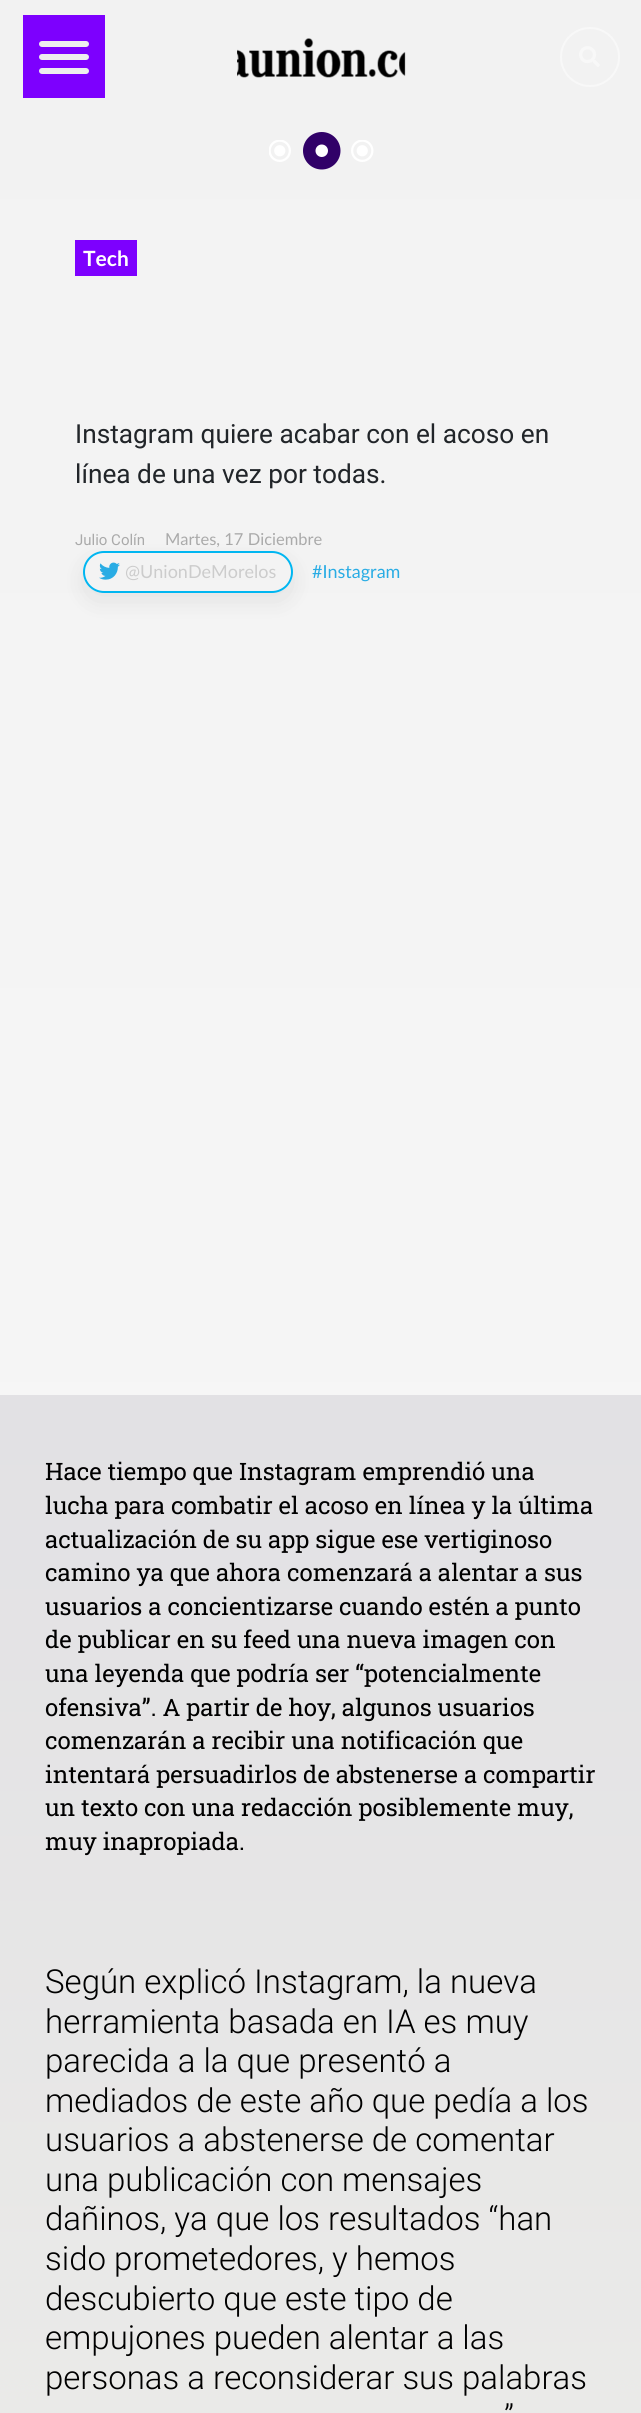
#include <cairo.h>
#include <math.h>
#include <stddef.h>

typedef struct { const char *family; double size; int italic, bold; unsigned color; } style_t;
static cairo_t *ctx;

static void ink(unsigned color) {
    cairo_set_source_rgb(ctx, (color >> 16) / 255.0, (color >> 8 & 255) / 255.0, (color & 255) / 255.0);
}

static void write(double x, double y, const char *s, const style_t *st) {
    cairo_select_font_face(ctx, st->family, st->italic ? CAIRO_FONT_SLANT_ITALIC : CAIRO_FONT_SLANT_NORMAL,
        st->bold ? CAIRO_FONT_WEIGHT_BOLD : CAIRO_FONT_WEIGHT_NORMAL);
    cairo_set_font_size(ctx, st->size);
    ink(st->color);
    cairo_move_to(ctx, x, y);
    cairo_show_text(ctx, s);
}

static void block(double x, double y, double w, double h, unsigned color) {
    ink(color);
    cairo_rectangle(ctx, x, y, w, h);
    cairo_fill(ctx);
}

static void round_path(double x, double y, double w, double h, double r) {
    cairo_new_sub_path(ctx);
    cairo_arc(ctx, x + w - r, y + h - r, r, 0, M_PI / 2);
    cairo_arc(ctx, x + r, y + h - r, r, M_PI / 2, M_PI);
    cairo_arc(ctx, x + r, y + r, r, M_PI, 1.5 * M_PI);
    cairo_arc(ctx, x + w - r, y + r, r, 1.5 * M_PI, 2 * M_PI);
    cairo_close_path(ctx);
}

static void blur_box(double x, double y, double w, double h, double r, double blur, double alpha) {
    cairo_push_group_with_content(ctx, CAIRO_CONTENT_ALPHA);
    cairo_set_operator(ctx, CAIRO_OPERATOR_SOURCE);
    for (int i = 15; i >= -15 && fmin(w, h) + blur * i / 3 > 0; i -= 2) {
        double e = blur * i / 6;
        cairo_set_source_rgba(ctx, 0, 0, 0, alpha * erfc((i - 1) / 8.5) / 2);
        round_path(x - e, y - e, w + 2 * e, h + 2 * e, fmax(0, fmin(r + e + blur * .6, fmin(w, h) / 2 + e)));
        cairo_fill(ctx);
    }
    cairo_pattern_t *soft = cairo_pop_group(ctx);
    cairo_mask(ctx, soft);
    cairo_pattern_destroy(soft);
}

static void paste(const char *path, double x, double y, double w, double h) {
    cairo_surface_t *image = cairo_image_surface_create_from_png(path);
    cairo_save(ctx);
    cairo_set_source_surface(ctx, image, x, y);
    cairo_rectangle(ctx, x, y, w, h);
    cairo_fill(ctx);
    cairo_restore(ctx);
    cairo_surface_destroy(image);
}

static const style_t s1 = {"Lato", 21, 0, 1, 0xffffff};
static const style_t s2 = {"Roboto", 26.25, 0, 0, 0x212529};
static const style_t s3 = {"Roboto", 15, 0, 0, 0xaaaaaa};
static const style_t s4 = {"Lato", 16.5, 0, 0, 0xaaaaaa};
static const style_t s5 = {"Lato", 18, 0, 0, 0xcccccc};
static const style_t s6 = {"Lato", 18, 0, 0, 0x29ace4};
static const style_t s7 = {"Roboto Slab", 24, 0, 0, 0x000000};
static const style_t s8 = {"Roboto Light", 33, 0, 0, 0x000000};

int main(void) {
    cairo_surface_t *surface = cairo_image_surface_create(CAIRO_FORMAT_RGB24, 641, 2413);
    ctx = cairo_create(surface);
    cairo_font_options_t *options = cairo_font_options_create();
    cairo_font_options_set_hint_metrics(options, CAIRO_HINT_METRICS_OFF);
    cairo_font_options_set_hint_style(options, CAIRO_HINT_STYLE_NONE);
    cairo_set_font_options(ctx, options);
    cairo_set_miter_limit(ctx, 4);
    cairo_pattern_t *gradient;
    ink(0xffffff);
    cairo_paint(ctx);
    gradient = cairo_pattern_create_linear(321, 0, 321, 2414);
    cairo_pattern_add_color_stop_rgba(gradient, 0, 0.949, 0.949, 0.949, 1);
    cairo_pattern_add_color_stop_rgba(gradient, 1, 0.973, 0.973, 0.973, 1);
    cairo_set_source(ctx, gradient);
    cairo_pattern_destroy(gradient);
    cairo_rectangle(ctx, 0, 0, 641, 1395);
    cairo_fill(ctx);
    block(23, 15, 82, 83, 0x7d00fe);
    ink(0xeeeeee);
    round_path(39, 41, 50, 6, 3);
    cairo_fill(ctx);
    round_path(39, 54, 50, 6, 3);
    cairo_fill(ctx);
    round_path(39, 68, 50, 6, 3);
    cairo_fill(ctx);
    paste("pic1.png", 237, 38, 169, 40);
    cairo_arc(ctx, 590, 57, 29, 0, 2 * M_PI);
    ink(0xf8f8f8);
    cairo_stroke(ctx);
    paste("pic2.png", 579, 46, 21, 21);
    paste("pic3.png", 351, 140, 23, 22);
    paste("pic4.png", 303, 132, 38, 38);
    paste("pic5.png", 269, 140, 22, 22);
    block(75, 240, 62, 36, 0x7d00fe);
    write(83, 266, "Tech", &s1);
    write(75, 443, "Instagram quiere acabar con el acoso en", &s2);
    write(75, 483, "línea de una vez por todas.", &s2);
    write(75, 545, "Julio Colín", &s3);
    write(165, 545, "Martes, 17 Diciembre", &s4);
    cairo_save(ctx);
    cairo_set_fill_rule(ctx, CAIRO_FILL_RULE_EVEN_ODD);
    cairo_new_path(ctx);
    cairo_move_to(ctx, 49, 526);
    cairo_line_to(ctx, 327, 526);
    cairo_line_to(ctx, 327, 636);
    cairo_line_to(ctx, 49, 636);
    cairo_close_path(ctx);
    cairo_move_to(ctx, 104, 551);
    cairo_line_to(ctx, 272, 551);
    cairo_curve_to(ctx, 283.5, 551, 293, 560.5, 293, 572);
    cairo_curve_to(ctx, 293, 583.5, 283.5, 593, 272, 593);
    cairo_line_to(ctx, 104, 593);
    cairo_curve_to(ctx, 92.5, 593, 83, 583.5, 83, 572);
    cairo_curve_to(ctx, 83, 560.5, 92.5, 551, 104, 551);
    cairo_close_path(ctx);
    cairo_clip(ctx);
    ink(0x242526);
    blur_box(83, 560, 210, 42, 21, 11, 0.08);
    cairo_restore(ctx);
    round_path(84, 552, 208, 40, 20);
    ink(0x00b6f1);
    cairo_stroke(ctx);
    paste("pic6.png", 99, 562, 21, 18);
    write(125, 578, "@UnionDeMorelos", &s5);
    write(312, 578, "#Instagram", &s6);
    gradient = cairo_pattern_create_linear(321, 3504, 321, 1395);
    cairo_pattern_add_color_stop_rgba(gradient, 0, 0.953, 0.957, 0.929, 1);
    cairo_pattern_add_color_stop_rgba(gradient, 1, 0.886, 0.882, 0.894, 1);
    cairo_set_source(ctx, gradient);
    cairo_pattern_destroy(gradient);
    cairo_rectangle(ctx, 0, 1395, 641, 1018);
    cairo_fill(ctx);
    write(45, 1480, "Hace tiempo que Instagram emprendió una", &s7);
    write(45, 1514, "lucha para combatir el acoso en línea y la última", &s7);
    write(45, 1548, "actualización de su app sigue ese vertiginoso", &s7);
    write(45, 1581, "camino ya que ahora comenzará a alentar a sus", &s7);
    write(45, 1615, "usuarios a concientizarse cuando estén a punto", &s7);
    write(45, 1648, "de publicar en su feed una nueva imagen con", &s7);
    write(45, 1682, "una leyenda que podría ser “potencialmente", &s7);
    write(45, 1716, "ofensiva”. A partir de hoy, algunos usuarios", &s7);
    write(45, 1749, "comenzarán a recibir una notificación que", &s7);
    write(45, 1783, "intentará persuadirlos de abstenerse a compartir", &s7);
    write(45, 1816, "un texto con una redacción posiblemente muy,", &s7);
    write(45, 1850, "muy inapropiada.", &s7);
    write(45, 1993, "Según explicó Instagram, la nueva", &s8);
    write(45, 2033, "herramienta basada en IA es muy", &s8);
    write(45, 2072, "parecida a la que presentó a", &s8);
    write(45, 2112, "mediados de este año que pedía a los", &s8);
    write(45, 2151, "usuarios a abstenerse de comentar", &s8);
    write(45, 2191, "una publicación con mensajes", &s8);
    write(45, 2230, "dañinos, ya que los resultados “han", &s8);
    write(45, 2270, "sido prometedores, y hemos", &s8);
    write(45, 2310, "descubierto que este tipo de", &s8);
    write(45, 2349, "empujones pueden alentar a las", &s8);
    write(45, 2389, "personas a reconsiderar sus palabras", &s8);
    write(504, 2428, "”", &s8);
    cairo_surface_write_to_png(surface, "screenshot.png");
    cairo_font_options_destroy(options);
    cairo_destroy(ctx);
    cairo_surface_destroy(surface);
    return 0;
}
